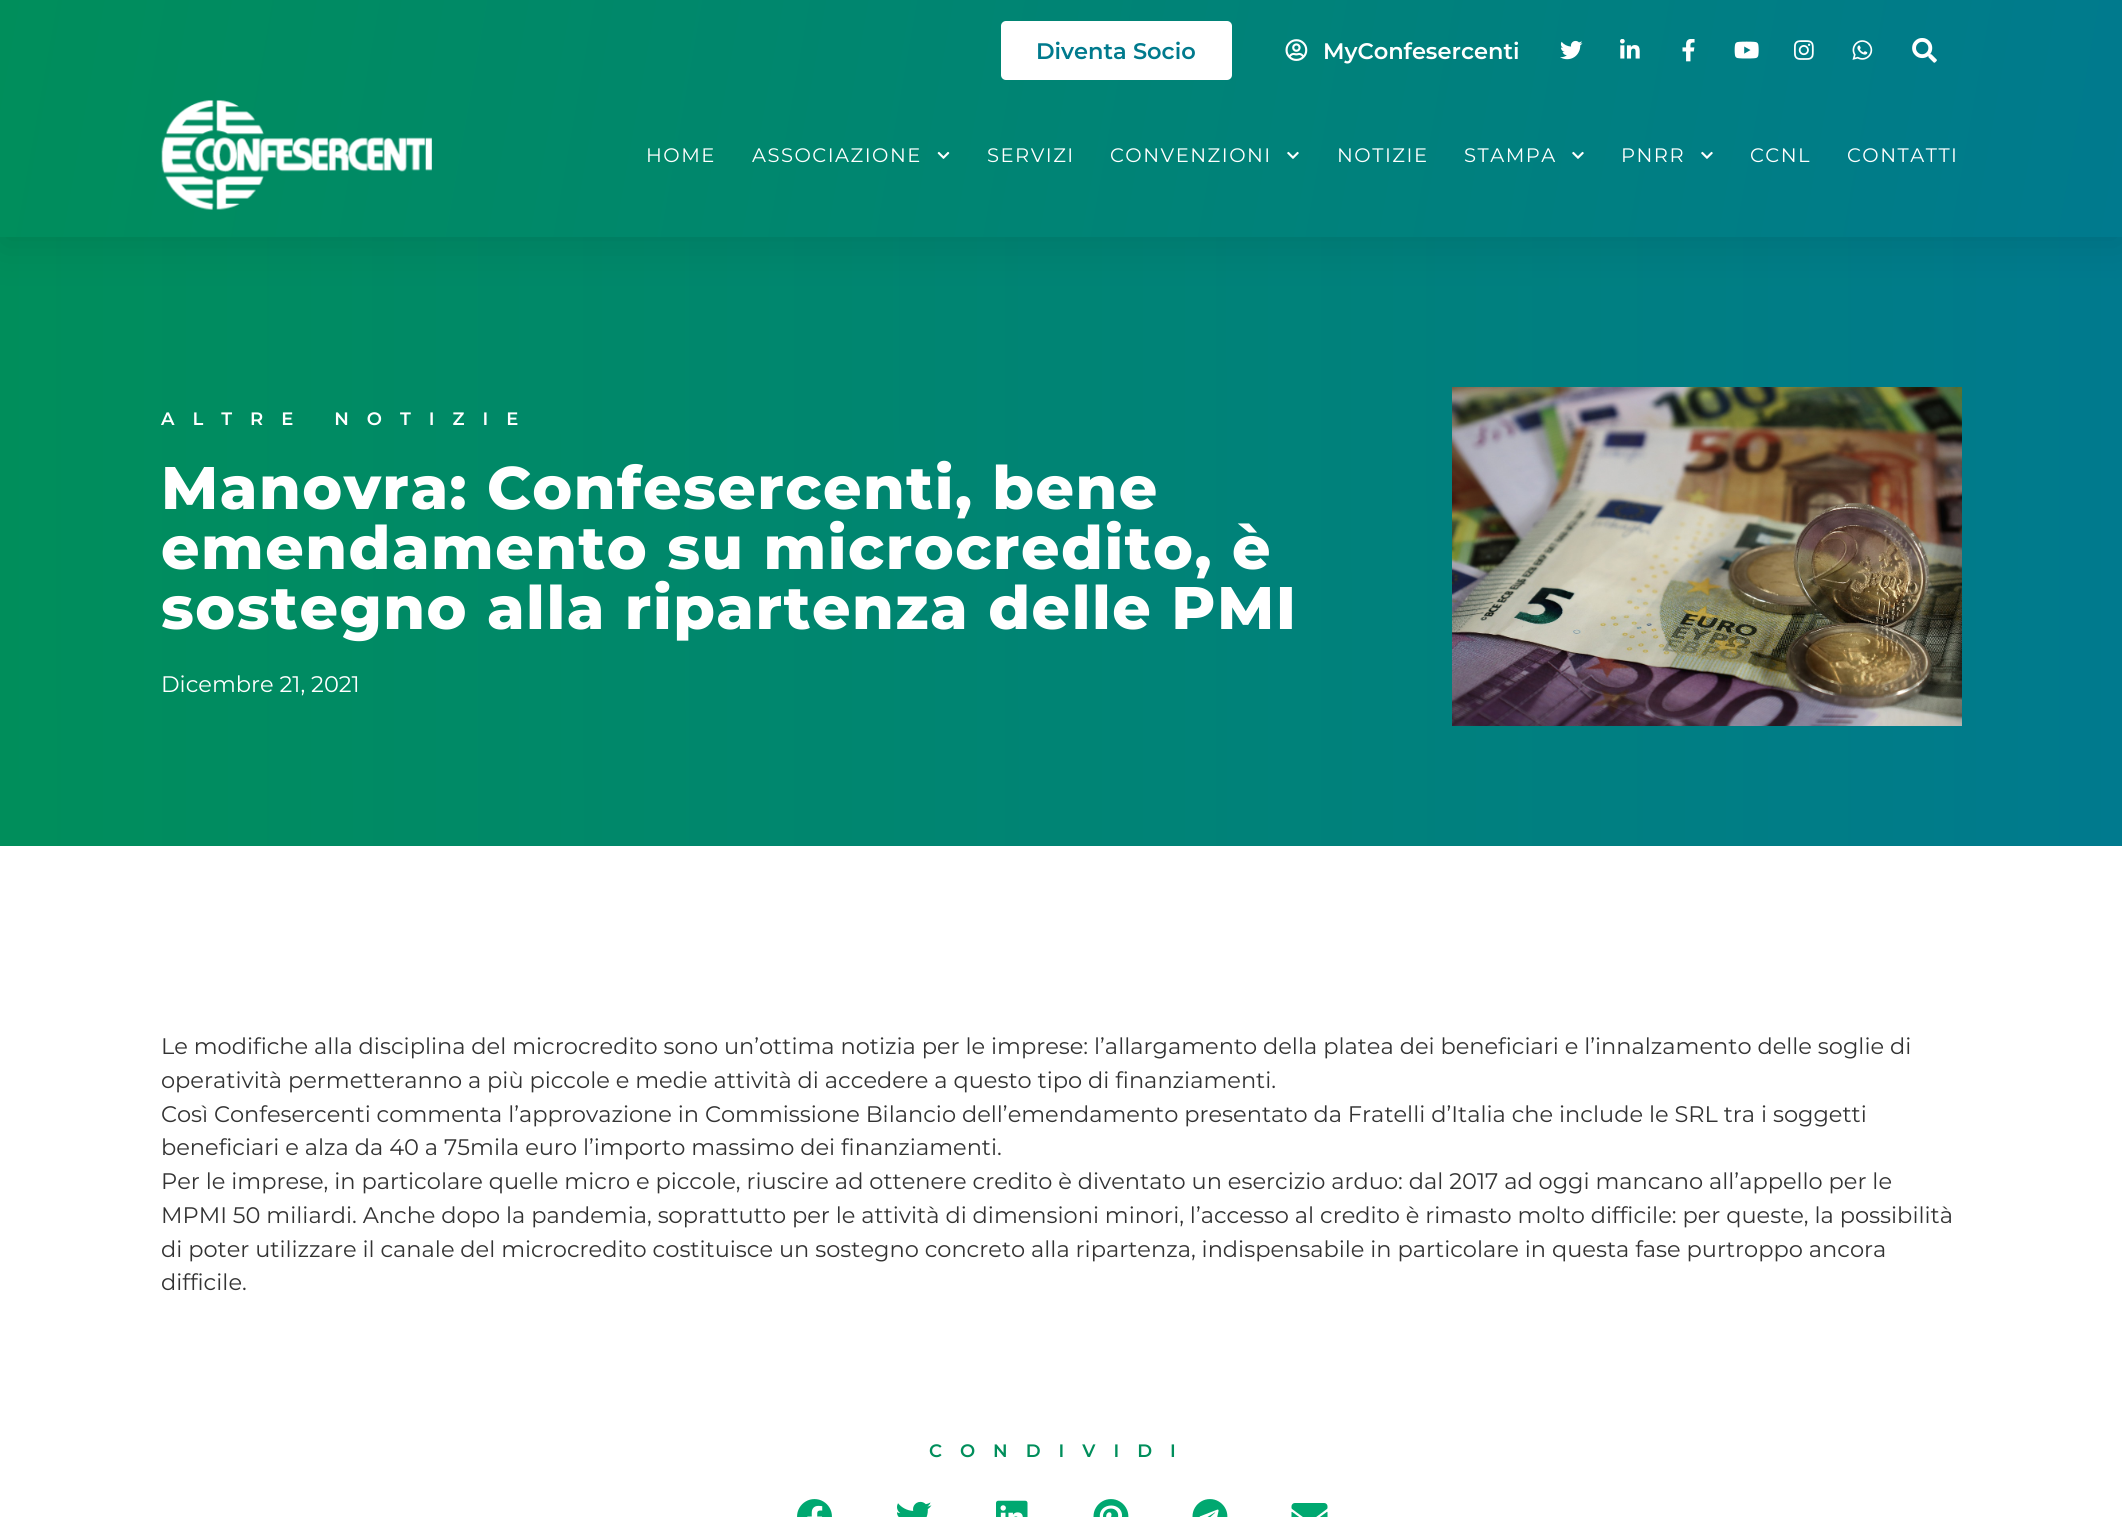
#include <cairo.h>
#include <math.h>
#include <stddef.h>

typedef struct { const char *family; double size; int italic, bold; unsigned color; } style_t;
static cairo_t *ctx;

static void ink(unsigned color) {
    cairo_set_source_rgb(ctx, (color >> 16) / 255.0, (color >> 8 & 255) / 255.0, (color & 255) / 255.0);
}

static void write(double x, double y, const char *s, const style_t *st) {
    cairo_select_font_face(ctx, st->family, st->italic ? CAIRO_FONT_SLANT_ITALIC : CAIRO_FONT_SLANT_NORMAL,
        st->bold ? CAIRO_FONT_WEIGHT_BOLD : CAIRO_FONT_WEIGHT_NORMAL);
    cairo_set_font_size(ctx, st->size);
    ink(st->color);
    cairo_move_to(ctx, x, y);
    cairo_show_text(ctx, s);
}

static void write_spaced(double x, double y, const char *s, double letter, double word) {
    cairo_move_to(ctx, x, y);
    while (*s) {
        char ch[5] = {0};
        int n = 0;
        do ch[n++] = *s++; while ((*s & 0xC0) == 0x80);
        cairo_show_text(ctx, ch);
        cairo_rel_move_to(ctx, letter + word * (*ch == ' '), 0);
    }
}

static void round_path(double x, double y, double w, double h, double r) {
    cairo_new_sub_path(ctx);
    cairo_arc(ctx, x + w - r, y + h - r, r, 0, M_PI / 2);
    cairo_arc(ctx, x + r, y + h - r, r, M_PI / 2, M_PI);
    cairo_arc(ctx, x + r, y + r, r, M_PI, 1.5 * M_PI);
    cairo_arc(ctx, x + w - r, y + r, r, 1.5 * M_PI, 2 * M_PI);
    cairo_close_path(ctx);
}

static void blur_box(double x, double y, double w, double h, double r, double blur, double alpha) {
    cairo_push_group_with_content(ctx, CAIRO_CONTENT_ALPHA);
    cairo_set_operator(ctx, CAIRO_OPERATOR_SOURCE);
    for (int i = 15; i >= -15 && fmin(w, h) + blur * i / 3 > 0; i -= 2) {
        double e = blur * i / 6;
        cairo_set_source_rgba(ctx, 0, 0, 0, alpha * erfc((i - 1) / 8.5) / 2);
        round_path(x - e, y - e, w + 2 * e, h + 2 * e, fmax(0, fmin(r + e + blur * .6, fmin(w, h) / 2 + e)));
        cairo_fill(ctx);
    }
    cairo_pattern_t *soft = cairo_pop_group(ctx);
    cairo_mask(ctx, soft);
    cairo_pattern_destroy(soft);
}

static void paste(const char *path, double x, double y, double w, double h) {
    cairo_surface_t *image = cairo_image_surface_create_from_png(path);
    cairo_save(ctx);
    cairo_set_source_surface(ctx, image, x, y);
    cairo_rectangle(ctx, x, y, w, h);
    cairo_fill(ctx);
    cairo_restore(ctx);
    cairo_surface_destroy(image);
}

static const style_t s1 = {"Montserrat SemiBold", 22.5, 0, 0, 0x007a8d};
static const style_t s2 = {"Montserrat SemiBold", 22.5, 0, 0, 0xffffff};
static const style_t s3 = {"Montserrat", 22.5, 0, 0, 0xffffff};
static const style_t s4 = {"Montserrat", 22.5, 0, 0, 0x333333};

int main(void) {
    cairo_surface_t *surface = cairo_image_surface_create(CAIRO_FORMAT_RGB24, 2122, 1517);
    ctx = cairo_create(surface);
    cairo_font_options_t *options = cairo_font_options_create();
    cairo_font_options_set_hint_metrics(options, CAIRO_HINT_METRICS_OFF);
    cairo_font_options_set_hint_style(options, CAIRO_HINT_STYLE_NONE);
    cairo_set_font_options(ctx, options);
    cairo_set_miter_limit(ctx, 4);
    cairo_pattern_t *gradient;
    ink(0xffffff);
    cairo_paint(ctx);
    gradient = cairo_pattern_create_linear(0, 542, 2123, 541);
    cairo_pattern_add_color_stop_rgba(gradient, 0, 0, 0.557, 0.357, 1);
    cairo_pattern_add_color_stop_rgba(gradient, 1, 0, 0.478, 0.557, 1);
    cairo_set_source(ctx, gradient);
    cairo_pattern_destroy(gradient);
    cairo_rectangle(ctx, 0, 237, 2122, 609);
    cairo_fill(ctx);
    ink(0x000000);
    blur_box(0, 8, 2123, 237, 0, 22.5, 0.1);
    gradient = cairo_pattern_create_linear(12, -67, 2111, 304);
    cairo_pattern_add_color_stop_rgba(gradient, 0, 0, 0.557, 0.357, 1);
    cairo_pattern_add_color_stop_rgba(gradient, 1, 0, 0.478, 0.557, 1);
    cairo_set_source(ctx, gradient);
    cairo_pattern_destroy(gradient);
    cairo_rectangle(ctx, 0, 0, 2122, 237);
    cairo_fill(ctx);
    ink(0xffffff);
    round_path(1001, 21, 231, 59, 5);
    cairo_fill(ctx);
    write(1036, 59, "Diventa Socio", &s1);
    paste("pic1.png", 1285, 39, 23, 22);
    write(1323, 59, "MyConfesercenti", &s2);
    paste("pic2.png", 1560, 40, 23, 20);
    paste("pic3.png", 1620, 39, 20, 20);
    paste("pic4.png", 1682, 39, 13, 23);
    paste("pic5.png", 1734, 41, 25, 18);
    paste("pic6.png", 1794, 40, 20, 20);
    paste("pic7.png", 1852, 40, 21, 20);
    paste("pic8.png", 1912, 38, 25, 25);
    paste("pic9.png", 161, 100, 271, 110);
    cairo_select_font_face(ctx, "Montserrat", CAIRO_FONT_SLANT_NORMAL, CAIRO_FONT_WEIGHT_NORMAL);
    cairo_set_font_size(ctx, 19.5);
    write_spaced(646, 162, "HOME", 1.5, 0);
    write_spaced(752, 162, "ASSOCIAZIONE", 1.5, 0);
    paste("pic10.png", 937, 151, 13, 8);
    write_spaced(987, 162, "SERVIZI", 1.5, 0);
    write_spaced(1110, 162, "CONVENZIONI", 1.5, 0);
    paste("pic11.png", 1287, 151, 12, 8);
    write_spaced(1337, 162, "NOTIZIE", 1.5, 0);
    write_spaced(1464, 162, "STAMPA", 1.5, 0);
    paste("pic12.png", 1572, 151, 12, 8);
    write_spaced(1621, 162, "PNRR", 1.5, 0);
    paste("pic13.png", 1701, 151, 12, 8);
    write_spaced(1750, 162, "CCNL", 1.5, 0);
    write_spaced(1847, 162, "CONTATTI", 1.5, 0);
    cairo_select_font_face(ctx, "Montserrat SemiBold", CAIRO_FONT_SLANT_NORMAL, CAIRO_FONT_WEIGHT_NORMAL);
    cairo_set_font_size(ctx, 18);
    write_spaced(161, 425, "ALTRE NOTIZIE", 18, 0);
    cairo_select_font_face(ctx, "Montserrat ExtraBold", CAIRO_FONT_SLANT_NORMAL, CAIRO_FONT_WEIGHT_NORMAL);
    cairo_set_font_size(ctx, 60);
    write_spaced(161, 509, "Manovra: Confesercenti, bene", 1.5, 0);
    write_spaced(161, 569, "emendamento su microcredito, è", 1.5, 0);
    write_spaced(161, 629, "sostegno alla ripartenza delle PMI", 1.5, 0);
    write(161, 692, "Dicembre 21, 2021", &s3);
    paste("pic14.png", 1452, 387, 510, 339);
    write(161, 1054, "Le modifiche alla disciplina del microcredito sono un’ottima notizia per le imprese: l’allargamento della platea dei beneficiari e l’innalzamento delle soglie di", &s4);
    write(161, 1088, "operatività permetteranno a più piccole e medie attività di accedere a questo tipo di finanziamenti.", &s4);
    write(161, 1122, "Così Confesercenti commenta l’approvazione in Commissione Bilancio dell’emendamento presentato da Fratelli d’Italia che include le SRL tra i soggetti", &s4);
    write(161, 1155, "beneficiari e alza da 40 a 75mila euro l’importo massimo dei finanziamenti.", &s4);
    write(161, 1189, "Per le imprese, in particolare quelle micro e piccole, riuscire ad ottenere credito è diventato un esercizio arduo: dal 2017 ad oggi mancano all’appello per le", &s4);
    write(161, 1223, "MPMI 50 miliardi. Anche dopo la pandemia, soprattutto per le attività di dimensioni minori, l’accesso al credito è rimasto molto difficile: per queste, la possibilità", &s4);
    write(161, 1257, "di poter utilizzare il canale del microcredito costituisce un sostegno concreto alla ripartenza, indispensabile in particolare in questa fase purtroppo ancora", &s4);
    write(161, 1290, "difficile.", &s4);
    cairo_select_font_face(ctx, "Montserrat SemiBold", CAIRO_FONT_SLANT_NORMAL, CAIRO_FONT_WEIGHT_NORMAL);
    cairo_set_font_size(ctx, 18);
    ink(0x008e5b);
    write_spaced(929, 1457, "CONDIVIDI", 18, 0);
    paste("pic15.png", 797, 1499, 35, 18);
    paste("pic16.png", 897, 1501, 35, 16);
    paste("pic17.png", 996, 1500, 32, 17);
    paste("pic18.png", 1093, 1499, 36, 18);
    paste("pic19.png", 1192, 1499, 36, 18);
    paste("pic20.png", 1291, 1503, 37, 14);
    cairo_surface_write_to_png(surface, "screenshot.png");
    cairo_font_options_destroy(options);
    cairo_destroy(ctx);
    cairo_surface_destroy(surface);
    return 0;
}
